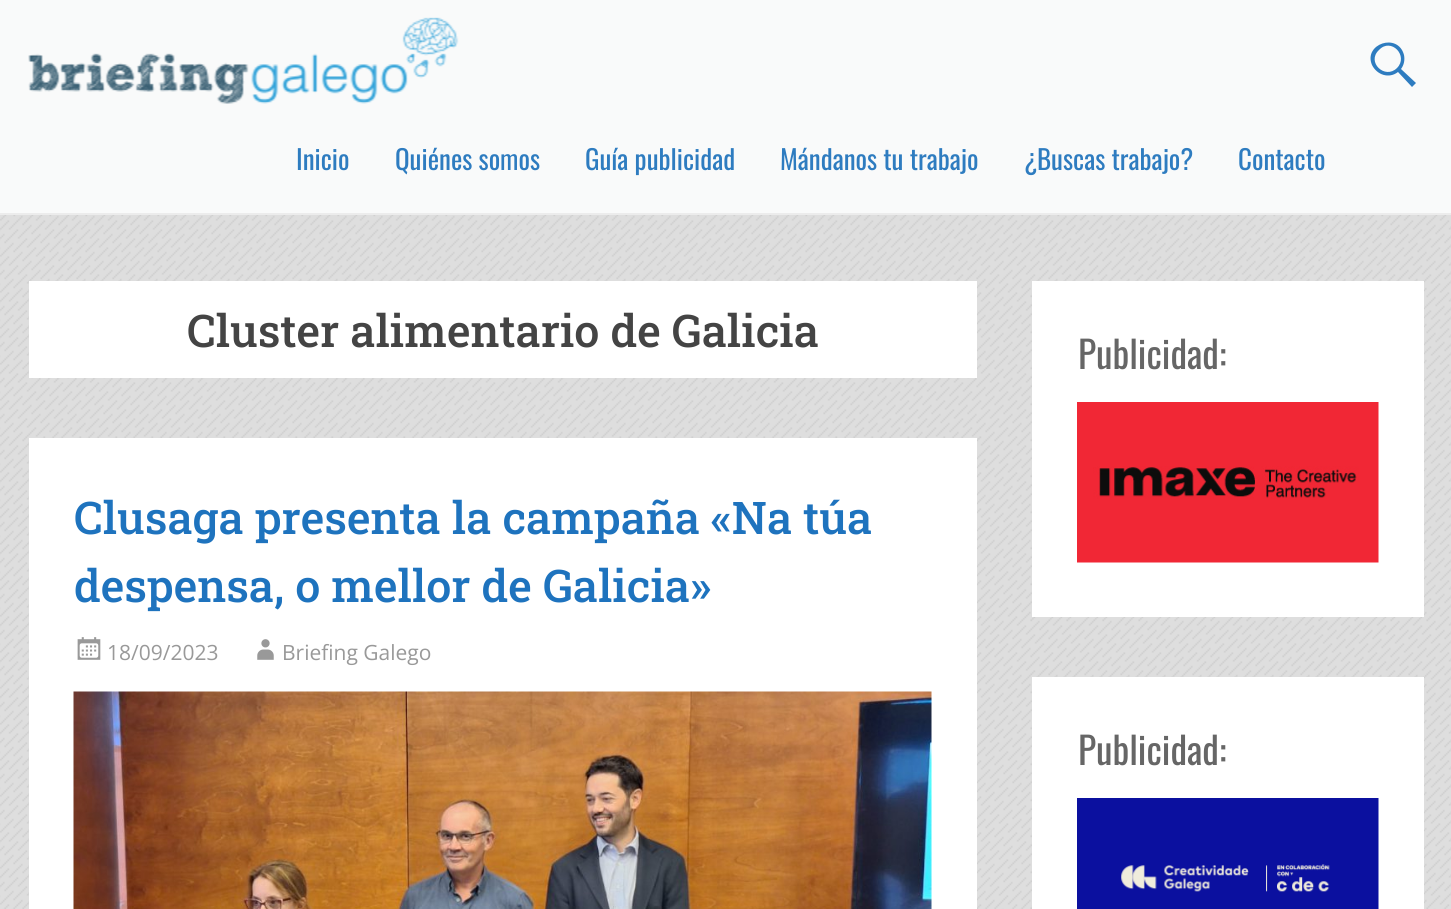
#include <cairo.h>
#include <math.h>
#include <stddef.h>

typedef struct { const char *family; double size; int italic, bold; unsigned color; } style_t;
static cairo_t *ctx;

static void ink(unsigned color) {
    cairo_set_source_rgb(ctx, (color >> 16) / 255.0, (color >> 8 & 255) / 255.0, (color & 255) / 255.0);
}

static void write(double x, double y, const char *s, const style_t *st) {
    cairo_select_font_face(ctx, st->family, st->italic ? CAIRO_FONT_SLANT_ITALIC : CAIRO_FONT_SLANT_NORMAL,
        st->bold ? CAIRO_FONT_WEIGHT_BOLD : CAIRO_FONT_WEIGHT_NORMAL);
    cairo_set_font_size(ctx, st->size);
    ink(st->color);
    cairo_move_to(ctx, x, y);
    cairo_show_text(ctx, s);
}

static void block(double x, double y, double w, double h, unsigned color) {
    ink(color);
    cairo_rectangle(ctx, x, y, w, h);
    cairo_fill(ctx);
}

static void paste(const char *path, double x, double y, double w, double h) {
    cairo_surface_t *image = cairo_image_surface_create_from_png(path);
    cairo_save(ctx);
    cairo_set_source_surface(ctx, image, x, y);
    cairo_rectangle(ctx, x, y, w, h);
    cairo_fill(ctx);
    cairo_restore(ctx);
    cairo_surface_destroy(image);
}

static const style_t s1 = {"Oswald", 27, 0, 0, 0x2e7cc0};
static const style_t s2 = {"Roboto Slab Medium", 45, 0, 0, 0x444444};
static const style_t s3 = {"Roboto Slab Medium", 45, 0, 0, 0x1e73be};
static const style_t s4 = {"Open Sans", 21, 0, 0, 0x999999};
static const style_t s5 = {"Oswald", 37.5, 0, 0, 0x666666};

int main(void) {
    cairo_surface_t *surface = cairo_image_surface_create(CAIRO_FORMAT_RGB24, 1451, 909);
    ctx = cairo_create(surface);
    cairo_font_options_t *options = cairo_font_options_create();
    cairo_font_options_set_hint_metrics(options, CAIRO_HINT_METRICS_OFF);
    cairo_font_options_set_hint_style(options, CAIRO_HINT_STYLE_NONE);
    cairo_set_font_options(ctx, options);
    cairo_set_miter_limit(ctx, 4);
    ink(0xbdcdcd);
    cairo_paint(ctx);
    cairo_set_source_rgba(ctx, 1, 1, 1, 0.9);
    cairo_rectangle(ctx, 0, 0, 1451, 213);
    cairo_fill(ctx);
    block(0, 213, 1451, 2, 0xececec);
    paste("pic1.png", 28, 17, 431, 87);
    ink(0x2e7cc0);
    cairo_new_path(ctx);
    cairo_move_to(ctx, 1372, 65);
    cairo_curve_to(ctx, 1363, 44, 1398, 32, 1404, 55);
    cairo_curve_to(ctx, 1405, 60, 1404, 65, 1401, 69);
    cairo_line_to(ctx, 1416, 83);
    cairo_line_to(ctx, 1412, 87);
    cairo_line_to(ctx, 1398, 72);
    cairo_curve_to(ctx, 1389, 79, 1377, 75, 1372, 65);
    cairo_close_path(ctx);
    cairo_move_to(ctx, 1379, 50);
    cairo_curve_to(ctx, 1366, 62, 1385, 80, 1397, 68);
    cairo_curve_to(ctx, 1409, 56, 1391, 37, 1379, 50);
    cairo_close_path(ctx);
    cairo_fill(ctx);
    write(296, 170, "Inicio", &s1);
    write(395, 170, "Quiénes somos", &s1);
    write(585, 170, "Guía publicidad", &s1);
    write(780, 170, "Mándanos tu trabajo", &s1);
    write(1024, 170, "¿Buscas trabajo?", &s1);
    write(1238, 170, "Contacto", &s1);
    paste("pic2.png", 0, 215, 1451, 694);
    block(29, 281, 948, 97, 0xffffff);
    write(187, 347, "Cluster alimentario de Galicia", &s2);
    block(29, 438, 948, 471, 0xffffff);
    write(74, 534, "Clusaga presenta la campaña «Na túa", &s3);
    write(74, 602, "despensa, o mellor de Galicia»", &s3);
    paste("pic3.png", 77, 637, 24, 23);
    write(107, 660, "18/09/2023", &s4);
    paste("pic4.png", 257, 639, 17, 21);
    write(282, 660, "Briefing Galego", &s4);
    paste("pic5.png", 73, 691, 859, 218);
    block(1032, 281, 392, 336, 0xffffff);
    write(1078, 369, "Publicidad:", &s5);
    paste("pic6.png", 1077, 402, 302, 161);
    block(1032, 677, 392, 232, 0xffffff);
    write(1078, 765, "Publicidad:", &s5);
    paste("pic7.png", 1077, 798, 302, 111);
    cairo_surface_write_to_png(surface, "screenshot.png");
    cairo_font_options_destroy(options);
    cairo_destroy(ctx);
    cairo_surface_destroy(surface);
    return 0;
}
